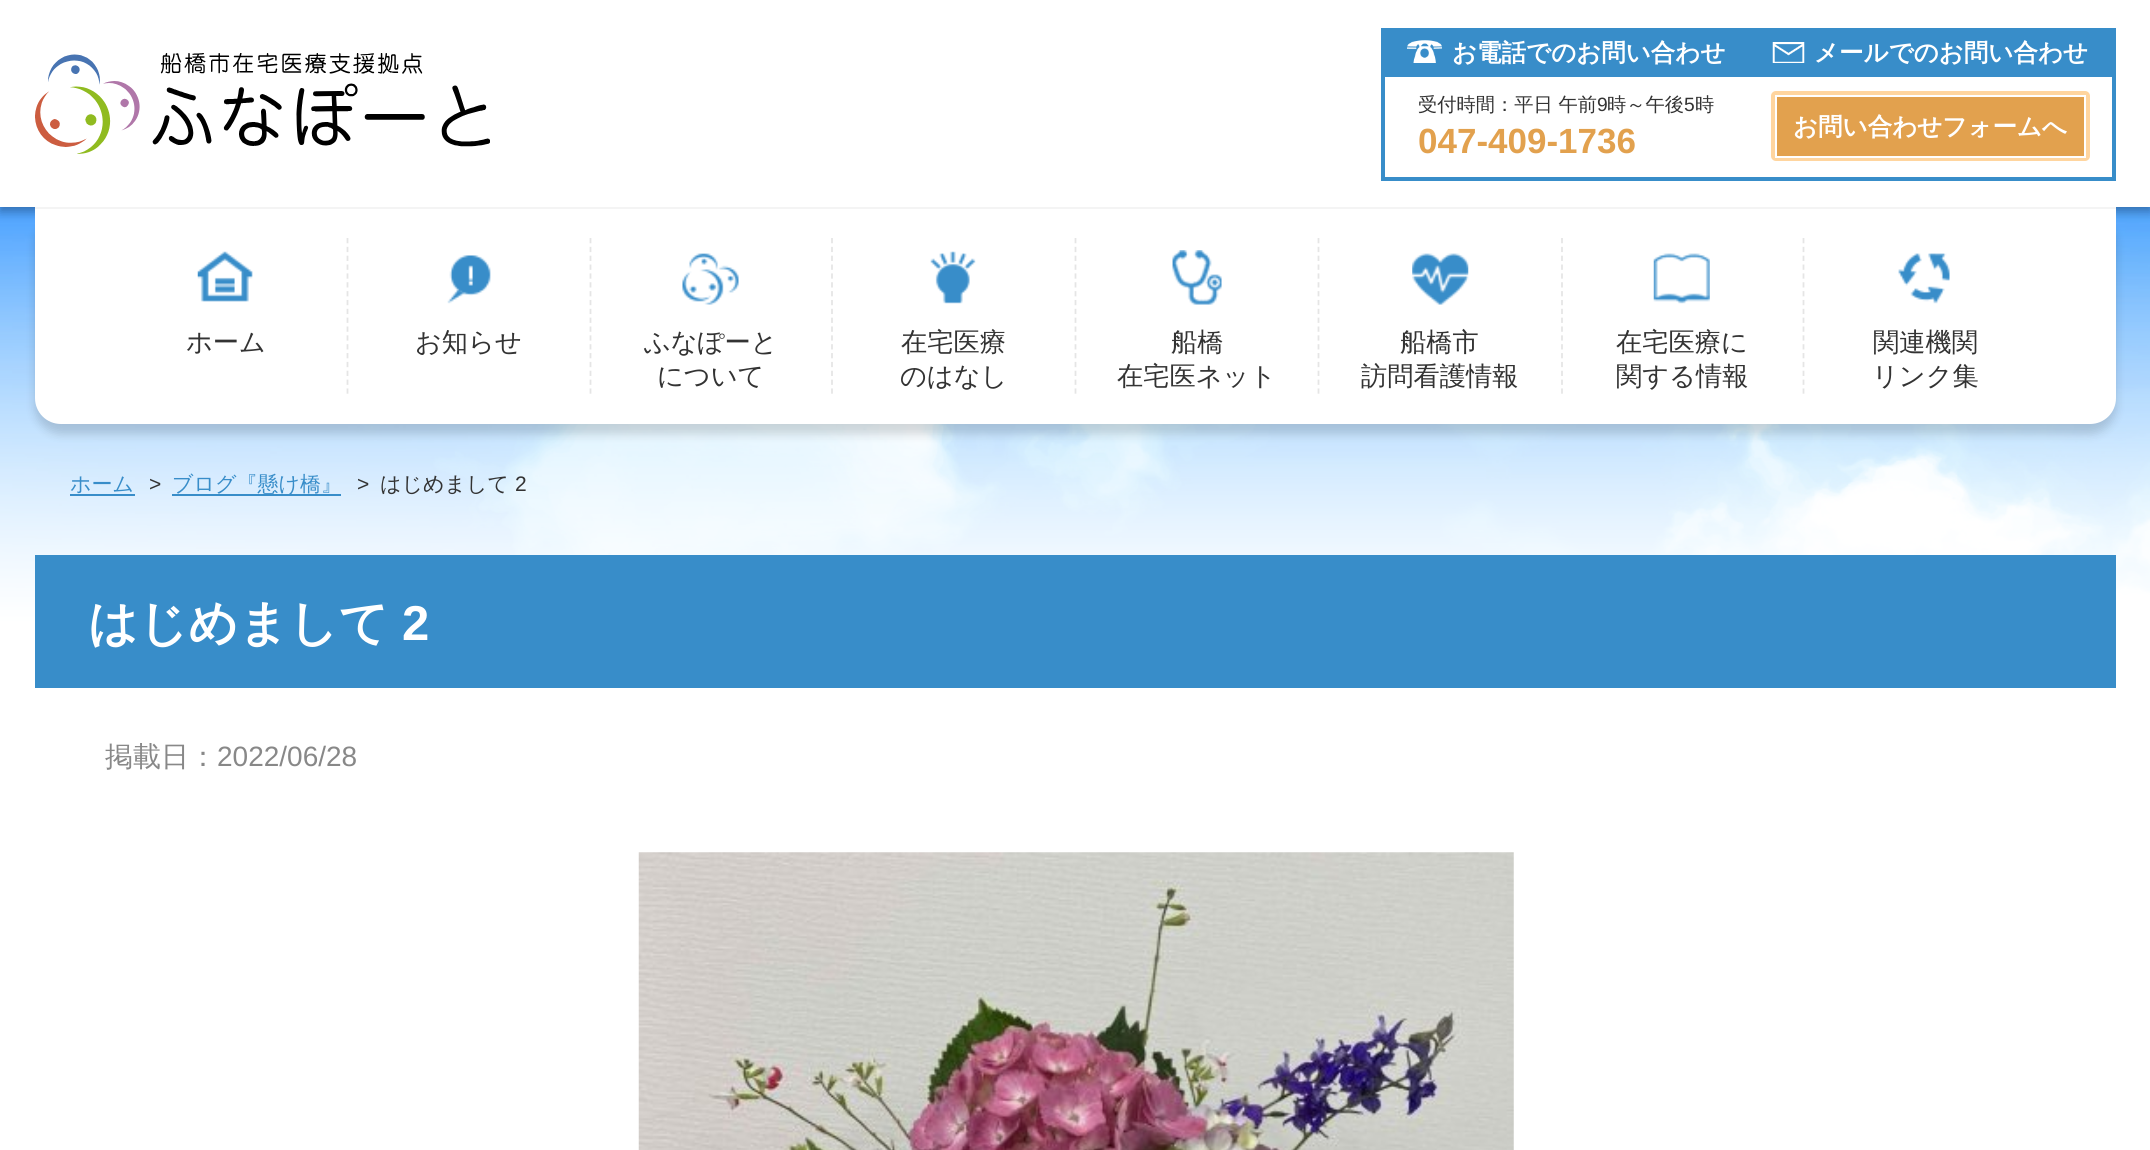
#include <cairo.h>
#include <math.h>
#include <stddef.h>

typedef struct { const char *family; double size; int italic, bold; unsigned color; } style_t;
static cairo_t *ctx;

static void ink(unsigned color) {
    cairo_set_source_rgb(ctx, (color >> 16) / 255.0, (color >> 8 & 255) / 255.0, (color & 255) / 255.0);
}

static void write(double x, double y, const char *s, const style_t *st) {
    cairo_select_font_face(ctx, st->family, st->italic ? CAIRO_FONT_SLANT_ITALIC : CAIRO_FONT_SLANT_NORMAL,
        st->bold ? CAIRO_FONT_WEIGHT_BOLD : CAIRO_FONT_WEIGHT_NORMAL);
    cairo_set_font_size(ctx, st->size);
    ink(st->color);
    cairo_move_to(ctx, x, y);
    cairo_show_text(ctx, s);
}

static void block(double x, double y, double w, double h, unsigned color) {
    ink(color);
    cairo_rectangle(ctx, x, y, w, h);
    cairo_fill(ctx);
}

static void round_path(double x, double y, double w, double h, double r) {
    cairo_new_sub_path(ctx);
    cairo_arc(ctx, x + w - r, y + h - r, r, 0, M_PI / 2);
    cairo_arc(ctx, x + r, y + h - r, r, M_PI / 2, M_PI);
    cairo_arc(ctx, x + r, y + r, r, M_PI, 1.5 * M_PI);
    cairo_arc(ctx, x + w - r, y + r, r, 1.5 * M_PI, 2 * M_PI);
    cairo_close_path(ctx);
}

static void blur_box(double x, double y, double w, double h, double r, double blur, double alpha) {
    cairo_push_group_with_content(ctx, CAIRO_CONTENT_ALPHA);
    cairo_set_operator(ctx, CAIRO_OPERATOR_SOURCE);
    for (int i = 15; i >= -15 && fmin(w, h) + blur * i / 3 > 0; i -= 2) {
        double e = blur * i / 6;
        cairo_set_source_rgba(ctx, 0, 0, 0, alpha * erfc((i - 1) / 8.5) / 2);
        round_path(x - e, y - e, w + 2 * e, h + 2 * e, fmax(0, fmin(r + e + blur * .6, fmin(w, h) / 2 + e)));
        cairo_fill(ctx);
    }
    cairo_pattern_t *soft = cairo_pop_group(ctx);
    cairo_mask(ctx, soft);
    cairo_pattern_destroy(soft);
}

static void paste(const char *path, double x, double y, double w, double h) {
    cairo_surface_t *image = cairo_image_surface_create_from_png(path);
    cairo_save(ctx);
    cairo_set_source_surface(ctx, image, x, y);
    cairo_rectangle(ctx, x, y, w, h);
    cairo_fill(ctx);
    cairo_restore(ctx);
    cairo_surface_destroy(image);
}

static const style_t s1 = {"WenQuanYi Zen Hei", 24.5, 0, 1, 0xffffff};
static const style_t s2 = {"WenQuanYi Zen Hei Medium", 19.25, 0, 0, 0x333333};
static const style_t s3 = {"Liberation Sans", 19.25, 0, 0, 0x333333};
static const style_t s4 = {"Liberation Sans", 35, 0, 1, 0xe2a14e};
static const style_t s5 = {"WenQuanYi Zen Hei Medium", 26.25, 0, 0, 0x333333};
static const style_t s6 = {"WenQuanYi Zen Hei Medium", 21, 0, 0, 0x388dc9};
static const style_t s7 = {"Liberation Sans", 21, 0, 0, 0x333333};
static const style_t s8 = {"WenQuanYi Zen Hei Medium", 21, 0, 0, 0x333333};
static const style_t s9 = {"WenQuanYi Zen Hei", 49, 0, 1, 0xffffff};
static const style_t s10 = {"Liberation Sans", 49, 0, 1, 0xffffff};
static const style_t s11 = {"WenQuanYi Zen Hei Medium", 28, 0, 0, 0x888888};
static const style_t s12 = {"Liberation Sans", 28, 0, 0, 0x888888};

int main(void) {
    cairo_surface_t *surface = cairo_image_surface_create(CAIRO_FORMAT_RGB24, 2150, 1150);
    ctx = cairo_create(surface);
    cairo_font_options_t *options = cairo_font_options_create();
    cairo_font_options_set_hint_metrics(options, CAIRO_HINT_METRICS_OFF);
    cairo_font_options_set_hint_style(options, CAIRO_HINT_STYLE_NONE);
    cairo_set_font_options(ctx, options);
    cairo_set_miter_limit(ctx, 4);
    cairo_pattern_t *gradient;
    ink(0xffffff);
    cairo_paint(ctx);
    paste("pic1.png", 0, 207, 2150, 414);
    gradient = cairo_pattern_create_linear(1075, 0, 1075, 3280);
    cairo_pattern_add_color_stop_rgba(gradient, 0, 1, 1, 1, 0);
    cairo_pattern_add_color_stop_rgba(gradient, 0.06, 1, 1, 1, 0);
    cairo_pattern_add_color_stop_rgba(gradient, 0.15, 1, 1, 1, 0.7);
    cairo_pattern_add_color_stop_rgba(gradient, 0.19, 1, 1, 1, 1);
    cairo_set_source(ctx, gradient);
    cairo_pattern_destroy(gradient);
    cairo_rectangle(ctx, 0, 207, 2150, 414);
    cairo_fill(ctx);
    ink(0x000000);
    blur_box(0, 5, 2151, 207, 0, 5, 0.3);
    block(0, 0, 2150, 207, 0xffffff);
    paste("pic2.png", 35, 53, 455, 101);
    block(1381, 177, 367, 4, 0x388dc9);
    block(1381, 28, 4, 152, 0x388dc9);
    block(1385, 28, 727, 49, 0x388dc9);
    paste("pic3.png", 1407, 40, 35, 23);
    write(1452, 61, "お電話でのお問い合わせ", &s1);
    write(1418, 111, "受付時間：平日 午前", &s2);
    write(1597, 111, "9", &s3);
    write(1607, 111, "時～午後", &s2);
    write(1684, 111, "5", &s3);
    write(1695, 111, "時", &s2);
    write(1418, 153, "047-409-1736", &s4);
    block(2112, 28, 4, 152, 0x388dc9);
    block(1748, 177, 368, 4, 0x388dc9);
    paste("pic4.png", 1772, 42, 33, 21);
    write(1814, 61, "メールでのお問い合わせ", &s1);
    ink(0xffd59f);
    round_path(1771, 91, 319, 70, 5);
    cairo_fill(ctx);
    ink(0xe2a14e);
    cairo_rectangle(ctx, 1776, 96, 309, 61);
    cairo_fill_preserve(ctx);
    ink(0xffffff);
    cairo_stroke(ctx);
    write(1793, 135, "お問い合わせフォームへ", &s1);
    ink(0x000000);
    blur_box(35, 217, 2081, 217, 26, 5, 0.15);
    ink(0xffffff);
    cairo_new_path(ctx);
    cairo_move_to(ctx, 35, 207);
    cairo_line_to(ctx, 2116, 207);
    cairo_line_to(ctx, 2116, 398);
    cairo_curve_to(ctx, 2116, 412.5, 2104.5, 424, 2090, 424);
    cairo_line_to(ctx, 61, 424);
    cairo_curve_to(ctx, 46.5, 424, 35, 412.5, 35, 398);
    cairo_close_path(ctx);
    cairo_fill(ctx);
    block(35, 207, 2081, 2, 0xf4f4f4);
    paste("pic5.png", 197, 251, 56, 51);
    write(186, 351, "ホーム", &s5);
    cairo_new_path(ctx);
    cairo_move_to(ctx, 347.5, 238);
    cairo_line_to(ctx, 347.5, 394);
    ink(0xe5e5e5);
    cairo_set_line_width(ctx, 1.8);
    cairo_set_dash(ctx, (double[]){5.25, 3.6}, 2, 0);
    cairo_stroke(ctx);
    paste("pic6.png", 447, 255, 44, 49);
    write(415, 351, "お知らせ", &s5);
    cairo_new_path(ctx);
    cairo_move_to(ctx, 590.5, 238);
    cairo_line_to(ctx, 590.5, 394);
    ink(0xe5e5e5);
    cairo_stroke(ctx);
    paste("pic7.png", 682, 253, 57, 52);
    write(644, 351, "ふなぽーと", &s5);
    write(657, 385, "について", &s5);
    cairo_new_path(ctx);
    cairo_move_to(ctx, 832, 238);
    cairo_line_to(ctx, 832, 394);
    ink(0xe5e5e5);
    cairo_stroke(ctx);
    paste("pic8.png", 930, 251, 46, 53);
    write(901, 351, "在宅医療", &s5);
    write(900, 385, "のはなし", &s5);
    cairo_new_path(ctx);
    cairo_move_to(ctx, 1075.5, 238);
    cairo_line_to(ctx, 1075.5, 394);
    ink(0xe5e5e5);
    cairo_stroke(ctx);
    paste("pic9.png", 1172, 250, 50, 55);
    write(1171, 351, "船橋", &s5);
    write(1117, 385, "在宅医ネット", &s5);
    cairo_new_path(ctx);
    cairo_move_to(ctx, 1318.5, 238);
    cairo_line_to(ctx, 1318.5, 394);
    ink(0xe5e5e5);
    cairo_stroke(ctx);
    paste("pic10.png", 1412, 253, 57, 52);
    write(1400, 351, "船橋市", &s5);
    write(1361, 385, "訪問看護情報", &s5);
    cairo_new_path(ctx);
    cairo_move_to(ctx, 1562, 238);
    cairo_line_to(ctx, 1562, 394);
    ink(0xe5e5e5);
    cairo_stroke(ctx);
    paste("pic11.png", 1653, 253, 57, 51);
    write(1616, 351, "在宅医療に", &s5);
    write(1616, 385, "関する情報", &s5);
    cairo_new_path(ctx);
    cairo_move_to(ctx, 1803.5, 238);
    cairo_line_to(ctx, 1803.5, 394);
    ink(0xe5e5e5);
    cairo_stroke(ctx);
    paste("pic12.png", 1898, 253, 52, 51);
    write(1873, 351, "関連機関", &s5);
    write(1872, 385, "リンク集", &s5);
    write(70, 491, "ホーム", &s6);
    block(70, 494, 65, 2, 0x388dc9);
    write(149, 491, ">", &s7);
    block(172, 494, 169, 2, 0x388dc9);
    write(172, 491, "ブログ『懸け橋』", &s6);
    write(357, 491, ">", &s7);
    write(380, 491, "はじめまして", &s8);
    write(515, 491, "2", &s7);
    block(35, 555, 2081, 133, 0x388dc9);
    write(88, 640, "はじめまして", &s9);
    write(402, 640, "2", &s10);
    write(105, 766, "掲載日：", &s11);
    write(217, 766, "2022/06/28", &s12);
    paste("pic13.png", 638, 852, 876, 298);
    cairo_surface_write_to_png(surface, "screenshot.png");
    cairo_font_options_destroy(options);
    cairo_destroy(ctx);
    cairo_surface_destroy(surface);
    return 0;
}
